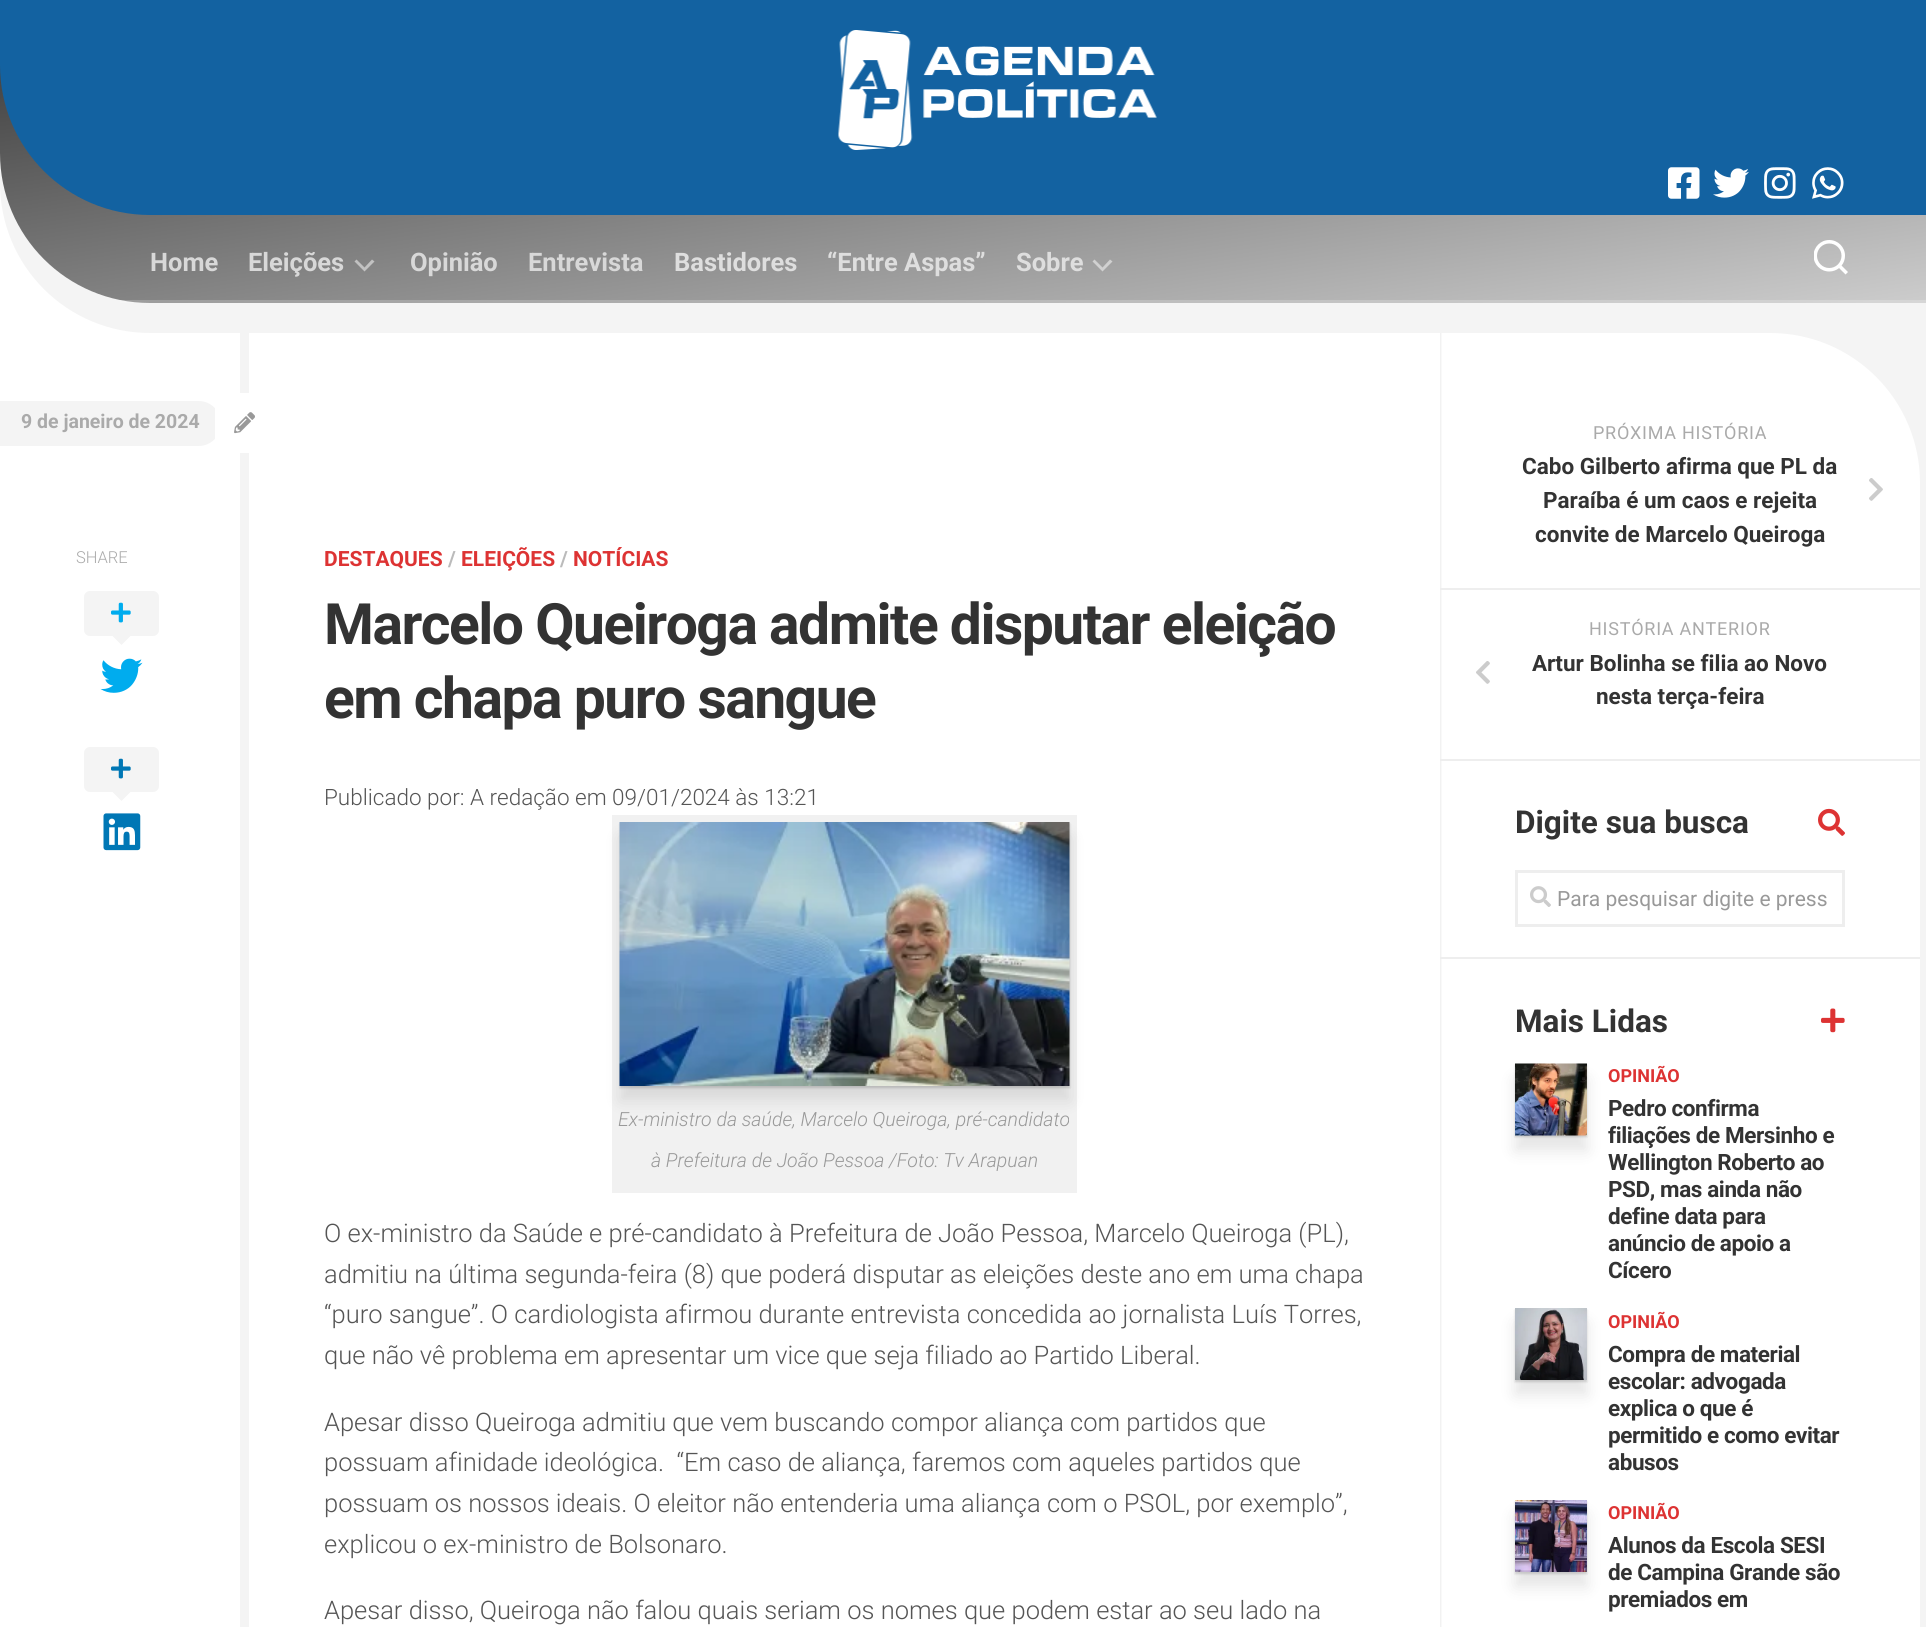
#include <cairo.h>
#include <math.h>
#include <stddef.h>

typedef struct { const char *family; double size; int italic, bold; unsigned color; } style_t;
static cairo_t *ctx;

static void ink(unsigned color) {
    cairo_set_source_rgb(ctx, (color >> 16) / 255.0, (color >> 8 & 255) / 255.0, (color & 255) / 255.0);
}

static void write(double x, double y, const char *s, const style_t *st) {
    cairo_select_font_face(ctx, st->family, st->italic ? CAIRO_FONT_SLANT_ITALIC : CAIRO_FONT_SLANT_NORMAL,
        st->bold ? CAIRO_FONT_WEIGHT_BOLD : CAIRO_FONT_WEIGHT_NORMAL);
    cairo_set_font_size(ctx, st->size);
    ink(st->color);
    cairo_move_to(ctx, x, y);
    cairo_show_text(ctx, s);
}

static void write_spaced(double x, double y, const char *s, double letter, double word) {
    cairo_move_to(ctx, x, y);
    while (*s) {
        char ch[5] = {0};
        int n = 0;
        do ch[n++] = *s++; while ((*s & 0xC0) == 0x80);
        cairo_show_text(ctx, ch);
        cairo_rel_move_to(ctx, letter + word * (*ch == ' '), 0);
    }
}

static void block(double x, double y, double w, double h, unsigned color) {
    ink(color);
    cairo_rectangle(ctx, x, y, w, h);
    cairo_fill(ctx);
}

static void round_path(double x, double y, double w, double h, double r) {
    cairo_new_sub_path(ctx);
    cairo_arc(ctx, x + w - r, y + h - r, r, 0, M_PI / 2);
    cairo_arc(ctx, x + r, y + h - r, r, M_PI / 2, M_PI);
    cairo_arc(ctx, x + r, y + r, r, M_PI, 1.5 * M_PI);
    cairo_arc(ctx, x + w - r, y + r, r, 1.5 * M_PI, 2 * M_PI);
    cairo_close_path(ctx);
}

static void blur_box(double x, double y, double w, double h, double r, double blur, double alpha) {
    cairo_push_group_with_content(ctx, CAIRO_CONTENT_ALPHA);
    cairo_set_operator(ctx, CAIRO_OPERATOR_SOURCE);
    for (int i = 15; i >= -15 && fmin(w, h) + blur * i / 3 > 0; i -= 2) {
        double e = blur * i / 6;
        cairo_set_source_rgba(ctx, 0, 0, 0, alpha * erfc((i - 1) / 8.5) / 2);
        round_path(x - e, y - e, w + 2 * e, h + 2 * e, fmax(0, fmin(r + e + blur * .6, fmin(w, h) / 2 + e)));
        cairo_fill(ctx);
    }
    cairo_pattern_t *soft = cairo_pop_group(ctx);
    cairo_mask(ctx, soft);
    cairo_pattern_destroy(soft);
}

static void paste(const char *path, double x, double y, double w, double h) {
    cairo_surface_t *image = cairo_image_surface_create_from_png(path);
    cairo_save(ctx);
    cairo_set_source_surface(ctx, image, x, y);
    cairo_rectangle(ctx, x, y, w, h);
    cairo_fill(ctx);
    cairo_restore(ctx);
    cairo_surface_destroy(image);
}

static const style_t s1 = {"Roboto", 25.5, 0, 1, 0xd8d8d8};
static const style_t s2 = {"Roboto", 25.5, 0, 1, 0xdedede};
static const style_t s3 = {"Roboto", 19.5, 0, 1, 0xaaaaaa};
static const style_t s4 = {"Roboto", 21, 0, 1, 0xdd3333};
static const style_t s5 = {"Roboto", 21, 0, 1, 0xbbbbbb};
static const style_t s6 = {"Roboto Light", 22.5, 0, 0, 0x555555};
static const style_t s7 = {"Roboto Light", 19.5, 1, 0, 0x999999};
static const style_t s8 = {"Roboto Light", 25.5, 0, 0, 0x555555};
static const style_t s9 = {"Roboto Light", 16.5, 0, 0, 0xaaaaaa};
static const style_t s10 = {"Roboto", 22.5, 0, 1, 0x333333};
static const style_t s11 = {"Roboto", 31.5, 0, 1, 0x333333};
static const style_t s12 = {"Roboto", 21, 0, 0, 0x999999};
static const style_t s13 = {"Roboto", 18, 0, 1, 0xdd3333};

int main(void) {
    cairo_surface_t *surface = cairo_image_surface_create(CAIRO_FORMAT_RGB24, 1926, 1627);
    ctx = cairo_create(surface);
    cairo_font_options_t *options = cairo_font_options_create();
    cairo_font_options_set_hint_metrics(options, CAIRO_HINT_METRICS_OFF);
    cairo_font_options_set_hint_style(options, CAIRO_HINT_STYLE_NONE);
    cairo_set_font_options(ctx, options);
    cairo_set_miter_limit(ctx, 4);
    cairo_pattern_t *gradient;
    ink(0xffffff);
    cairo_paint(ctx);
    ink(0xf4f4f4);
    cairo_new_path(ctx);
    cairo_move_to(ctx, 0, 0);
    cairo_line_to(ctx, 1926, 0);
    cairo_line_to(ctx, 1926, 333);
    cairo_line_to(ctx, 150, 333);
    cairo_curve_to(ctx, 67, 333, 0, 266, 0, 183);
    cairo_close_path(ctx);
    cairo_fill(ctx);
    gradient = cairo_pattern_create_linear(1010, 447, 916, -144);
    cairo_pattern_add_color_stop_rgba(gradient, 0, 0.8, 0.8, 0.8, 1);
    cairo_pattern_add_color_stop_rgba(gradient, 1, 0.2, 0.2, 0.2, 1);
    cairo_set_source(ctx, gradient);
    cairo_pattern_destroy(gradient);
    cairo_new_path(ctx);
    cairo_move_to(ctx, 0, 0);
    cairo_line_to(ctx, 1926, 0);
    cairo_line_to(ctx, 1926, 303);
    cairo_line_to(ctx, 150, 303);
    cairo_curve_to(ctx, 67, 303, 0, 236, 0, 153);
    cairo_close_path(ctx);
    cairo_fill(ctx);
    cairo_set_source_rgba(ctx, 1, 1, 1, 0.2);
    cairo_rectangle(ctx, 120, 300, 1806, 3);
    cairo_fill(ctx);
    ink(0x1362a1);
    cairo_new_path(ctx);
    cairo_move_to(ctx, 0, 0);
    cairo_line_to(ctx, 1926, 0);
    cairo_line_to(ctx, 1926, 215);
    cairo_line_to(ctx, 150, 215);
    cairo_curve_to(ctx, 67, 215, 0, 148, 0, 65);
    cairo_close_path(ctx);
    cairo_fill(ctx);
    paste("pic1.png", 838, 30, 319, 120);
    paste("pic2.png", 1668, 167, 32, 32);
    paste("pic3.png", 1713, 168, 36, 30);
    paste("pic4.png", 1764, 167, 32, 32);
    paste("pic5.png", 1812, 167, 32, 32);
    write(150, 271, "Home", &s1);
    write(248, 271, "Eleições", &s1);
    cairo_set_source_rgba(ctx, 1, 1, 1, 0.5);
    cairo_set_fill_rule(ctx, CAIRO_FILL_RULE_EVEN_ODD);
    cairo_new_path(ctx);
    cairo_move_to(ctx, 364.5, 267.5);
    cairo_line_to(ctx, 372, 259.5);
    cairo_line_to(ctx, 374.5, 261.5);
    cairo_line_to(ctx, 364.5, 271.5);
    cairo_line_to(ctx, 354.5, 261.5);
    cairo_line_to(ctx, 356.5, 259.5);
    cairo_close_path(ctx);
    cairo_fill(ctx);
    write(410, 271, "Opinião", &s1);
    write(528, 271, "Entrevista", &s1);
    write(674, 271, "Bastidores", &s2);
    write(827, 271, "“Entre Aspas”", &s2);
    write(1016, 271, "Sobre", &s2);
    cairo_set_source_rgba(ctx, 1, 1, 1, 0.5);
    cairo_new_path(ctx);
    cairo_move_to(ctx, 1102.5, 267.5);
    cairo_line_to(ctx, 1110, 259.5);
    cairo_line_to(ctx, 1112.5, 261.5);
    cairo_line_to(ctx, 1102.5, 271.5);
    cairo_line_to(ctx, 1092.5, 261.5);
    cairo_line_to(ctx, 1094.5, 259.5);
    cairo_close_path(ctx);
    cairo_fill(ctx);
    paste("pic6.png", 1814, 240, 34, 35);
    block(1771, 333, 155, 1294, 0xf4f4f4);
    ink(0xffffff);
    cairo_new_path(ctx);
    cairo_move_to(ctx, 0, 333);
    cairo_line_to(ctx, 1770, 333);
    cairo_curve_to(ctx, 1853, 333, 1920, 400, 1920, 483);
    cairo_line_to(ctx, 1920, 1627);
    cairo_curve_to(ctx, 1920, 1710, 1853, 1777, 1770, 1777);
    cairo_line_to(ctx, 0, 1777);
    cairo_close_path(ctx);
    cairo_fill(ctx);
    block(240, 333, 9, 1294, 0xf4f4f4);
    paste("pic7.png", 1440, 333, 2, 1294);
    cairo_new_path(ctx);
    cairo_move_to(ctx, 0, 401);
    cairo_line_to(ctx, 198.5, 401);
    cairo_curve_to(ctx, 211, 401, 221, 411, 221, 423.5);
    cairo_curve_to(ctx, 221, 436, 211, 446, 198.5, 446);
    cairo_line_to(ctx, 0, 446);
    cairo_close_path(ctx);
    cairo_fill(ctx);
    write(21, 428, "9 de janeiro de 2024", &s3);
    ink(0xffffff);
    round_path(215, 393, 60, 60, 15);
    cairo_fill(ctx);
    paste("pic8.png", 234, 412, 21, 22);
    write(324, 566, "DESTAQUES", &s4);
    write(448, 566, "/", &s5);
    write(461, 566, "ELEIÇÕES", &s4);
    write(560, 566, "/", &s5);
    write(573, 566, "NOTÍCIAS", &s4);
    cairo_set_font_size(ctx, 57);
    ink(0x333333);
    write_spaced(324, 644, "Marcelo Queiroga admite disputar eleição", -1.5, 0);
    write_spaced(324, 718, "em chapa puro sangue", -1.5, 0);
    write(324, 805, "Publicado por: A redação em 09/01/2024 às 13:21", &s6);
    block(612, 815, 465, 378, 0xf1f1f1);
    ink(0x000000);
    blur_box(620, 837, 450, 264, 0, 7.5, 0.1);
    blur_box(620, 824, 450, 264, 0, 1, 0.15);
    paste("pic9.png", 619, 822, 451, 264);
    write(618, 1126, "Ex-ministro da saúde, Marcelo Queiroga, pré-candidato", &s7);
    write(651, 1167, "à Prefeitura de João Pessoa /Foto: Tv Arapuan", &s7);
    write(324, 1242, "O ex-ministro da Saúde e pré-candidato à Prefeitura de João Pessoa, Marcelo Queiroga (PL),", &s8);
    write(324, 1283, "admitiu na última segunda-feira (8) que poderá disputar as eleições deste ano em uma chapa", &s8);
    write(324, 1323, "“puro sangue”. O cardiologista afirmou durante entrevista concedida ao jornalista Luís Torres,", &s8);
    write(324, 1364, "que não vê problema em apresentar um vice que seja filiado ao Partido Liberal.", &s8);
    write(324, 1431, "Apesar disso Queiroga admitiu que vem buscando compor aliança com partidos que", &s8);
    write(324, 1471, "possuam afinidade ideológica.  “Em caso de aliança, faremos com aqueles partidos que", &s8);
    write(324, 1512, "possuam os nossos ideais. O eleitor não entenderia uma aliança com o PSOL, por exemplo”,", &s8);
    write(324, 1553, "explicou o ex-ministro de Bolsonaro.", &s8);
    write(324, 1619, "Apesar disso, Queiroga não falou quais seriam os nomes que podem estar ao seu lado na", &s8);
    write(76, 563, "SHARE", &s9);
    ink(0xf4f4f4);
    round_path(84, 591, 75, 45, 6);
    cairo_fill(ctx);
    paste("pic10.png", 111, 602, 20, 21);
    cairo_set_fill_rule(ctx, CAIRO_FILL_RULE_WINDING);
    cairo_new_path(ctx);
    cairo_move_to(ctx, 112.5, 636);
    cairo_line_to(ctx, 130.5, 636);
    cairo_line_to(ctx, 121.5, 645);
    cairo_close_path(ctx);
    cairo_fill(ctx);
    paste("pic11.png", 100, 658, 43, 35);
    round_path(84, 747, 75, 45, 6);
    cairo_fill(ctx);
    paste("pic12.png", 111, 758, 20, 21);
    cairo_new_path(ctx);
    cairo_move_to(ctx, 112.5, 792);
    cairo_line_to(ctx, 130.5, 792);
    cairo_line_to(ctx, 121.5, 801);
    cairo_close_path(ctx);
    cairo_fill(ctx);
    paste("pic13.png", 103, 813, 38, 38);
    block(1440, 588, 480, 2, 0xeeeeee);
    cairo_select_font_face(ctx, "Roboto", CAIRO_FONT_SLANT_NORMAL, CAIRO_FONT_WEIGHT_NORMAL);
    cairo_set_font_size(ctx, 18);
    ink(0xaaaaaa);
    write_spaced(1593, 439, "PRÓXIMA HISTÓRIA", 0.75, 0);
    write(1522, 474, "Cabo Gilberto afirma que PL da", &s10);
    write(1543, 508, "Paraíba é um caos e rejeita", &s10);
    paste("pic14.png", 1869, 478, 14, 23);
    write(1535, 542, "convite de Marcelo Queiroga", &s10);
    block(1440, 759, 480, 2, 0xeeeeee);
    cairo_select_font_face(ctx, "Roboto", CAIRO_FONT_SLANT_NORMAL, CAIRO_FONT_WEIGHT_NORMAL);
    cairo_set_font_size(ctx, 18);
    ink(0xaaaaaa);
    write_spaced(1589, 635, "HISTÓRIA ANTERIOR", 0.75, 0);
    paste("pic15.png", 1476, 661, 14, 23);
    write(1532, 671, "Artur Bolinha se filia ao Novo", &s10);
    write(1596, 704, "nesta terça-feira", &s10);
    block(1440, 957, 480, 2, 0xeeeeee);
    write(1515, 833, "Digite sua busca", &s11);
    paste("pic16.png", 1818, 808, 27, 28);
    cairo_rectangle(ctx, 1516.5, 871.5, 327, 54);
    ink(0xeeeeee);
    cairo_set_line_width(ctx, 3);
    cairo_stroke(ctx);
    paste("pic17.png", 1530, 886, 21, 21);
    write(1557, 906, "Para pesquisar digite e press", &s12);
    write(1515, 1032, "Mais Lidas", &s11);
    paste("pic18.png", 1821, 1008, 24, 25);
    ink(0x000000);
    blur_box(1515, 1065, 72, 72, 0, 1, 0.15);
    blur_box(1515, 1079, 72, 72, 0, 7.5, 0.1);
    paste("pic19.png", 1515, 1063, 72, 73);
    write(1608, 1082, "OPINIÃO", &s13);
    cairo_set_font_size(ctx, 22.5);
    ink(0x333333);
    write_spaced(1608, 1116, "Pedro confirma", -0.4, 0);
    write_spaced(1608, 1143, "filiações de Mersinho e", -0.4, 0);
    write_spaced(1608, 1170, "Wellington Roberto ao", -0.4, 0);
    write_spaced(1608, 1197, "PSD, mas ainda não", -0.4, 0);
    write_spaced(1608, 1224, "define data para", -0.4, 0);
    write_spaced(1608, 1251, "anúncio de apoio a", -0.4, 0);
    write_spaced(1608, 1278, "Cícero", -0.4, 0);
    ink(0x000000);
    blur_box(1515, 1310, 72, 72, 0, 1, 0.15);
    blur_box(1515, 1323, 72, 72, 0, 7.5, 0.1);
    paste("pic20.png", 1515, 1308, 72, 72);
    write(1608, 1328, "OPINIÃO", &s13);
    cairo_set_font_size(ctx, 22.5);
    ink(0x333333);
    write_spaced(1608, 1362, "Compra de material", -0.4, 0);
    write_spaced(1608, 1389, "escolar: advogada", -0.4, 0);
    write_spaced(1608, 1416, "explica o que é", -0.4, 0);
    write_spaced(1608, 1443, "permitido e como evitar", -0.4, 0);
    write_spaced(1608, 1470, "abusos", -0.4, 0);
    ink(0x000000);
    blur_box(1515, 1502, 72, 72, 0, 1, 0.15);
    blur_box(1515, 1515, 72, 72, 0, 7.5, 0.1);
    paste("pic21.png", 1515, 1500, 72, 72);
    write(1608, 1519, "OPINIÃO", &s13);
    cairo_set_font_size(ctx, 22.5);
    ink(0x333333);
    write_spaced(1608, 1553, "Alunos da Escola SESI", -0.4, 0);
    write_spaced(1608, 1580, "de Campina Grande são", -0.4, 0);
    write_spaced(1608, 1607, "premiados em", -0.4, 0);
    cairo_surface_write_to_png(surface, "screenshot.png");
    cairo_font_options_destroy(options);
    cairo_destroy(ctx);
    cairo_surface_destroy(surface);
    return 0;
}
